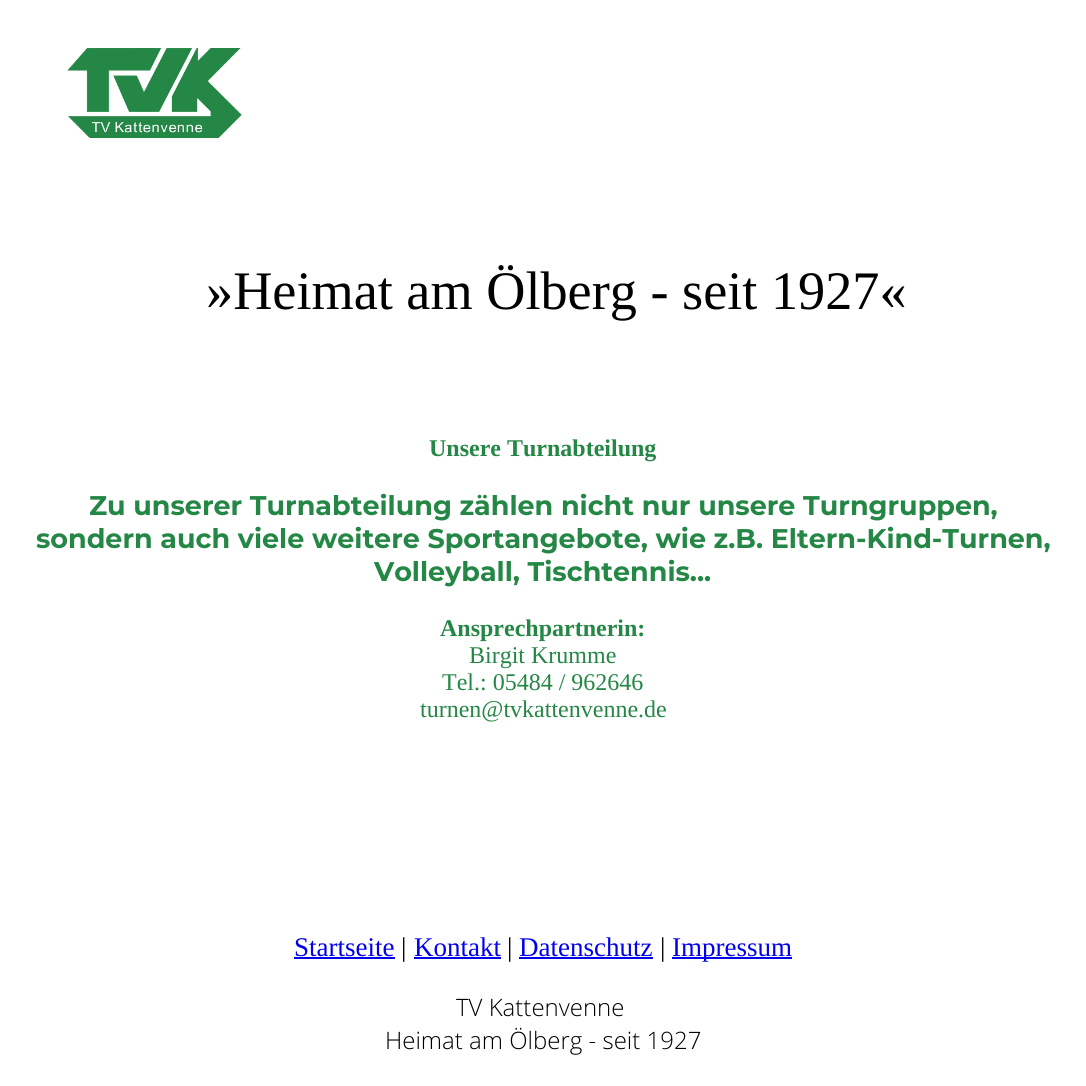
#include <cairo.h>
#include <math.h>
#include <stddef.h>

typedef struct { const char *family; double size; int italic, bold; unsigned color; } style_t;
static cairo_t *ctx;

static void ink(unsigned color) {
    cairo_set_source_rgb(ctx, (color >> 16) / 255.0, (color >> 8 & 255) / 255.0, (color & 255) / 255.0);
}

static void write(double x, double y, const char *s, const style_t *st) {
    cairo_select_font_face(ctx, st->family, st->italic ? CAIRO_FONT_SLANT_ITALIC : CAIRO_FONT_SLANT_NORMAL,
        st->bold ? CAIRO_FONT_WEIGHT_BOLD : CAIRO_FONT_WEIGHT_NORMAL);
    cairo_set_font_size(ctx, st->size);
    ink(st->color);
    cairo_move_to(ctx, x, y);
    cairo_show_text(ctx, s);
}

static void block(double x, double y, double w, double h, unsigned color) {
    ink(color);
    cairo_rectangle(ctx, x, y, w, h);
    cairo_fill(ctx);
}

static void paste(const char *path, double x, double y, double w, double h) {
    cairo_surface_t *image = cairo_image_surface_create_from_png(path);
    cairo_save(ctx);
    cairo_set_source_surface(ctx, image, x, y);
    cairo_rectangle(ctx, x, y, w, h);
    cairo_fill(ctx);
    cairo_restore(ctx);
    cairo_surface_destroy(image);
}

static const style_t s1 = {"Liberation Serif", 54.25, 0, 0, 0x000000};
static const style_t s2 = {"Liberation Serif", 24, 0, 1, 0x248745};
static const style_t s3 = {"Montserrat", 27, 0, 1, 0x248745};
static const style_t s4 = {"Liberation Serif", 24, 0, 0, 0x248745};
static const style_t s5 = {"Liberation Serif", 27, 0, 0, 0x0000ee};
static const style_t s6 = {"Liberation Serif", 27, 0, 0, 0x000000};
static const style_t s7 = {"Open Sans Light", 24, 0, 0, 0x000000};

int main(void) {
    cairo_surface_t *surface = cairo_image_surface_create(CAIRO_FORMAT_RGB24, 1086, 1086);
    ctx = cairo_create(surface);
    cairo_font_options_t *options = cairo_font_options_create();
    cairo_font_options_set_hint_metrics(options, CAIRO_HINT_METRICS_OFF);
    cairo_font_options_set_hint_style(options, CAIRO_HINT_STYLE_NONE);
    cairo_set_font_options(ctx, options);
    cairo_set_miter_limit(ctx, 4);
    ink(0xffffff);
    cairo_paint(ctx);
    paste("pic1.png", 67, 48, 175, 90);
    write(206, 309, "»Heimat am Ölberg - seit 1927«", &s1);
    write(429, 456, "Unsere Turnabteilung", &s2);
    write(89, 515, "Zu unserer Turnabteilung zählen nicht nur unsere Turngruppen,", &s3);
    write(36, 548, "sondern auch viele weitere Sportangebote, wie z.B. Eltern-Kind-Turnen,", &s3);
    write(374, 581, "Volleyball, Tischtennis...", &s3);
    write(440, 636, "Ansprechpartnerin:", &s2);
    write(469, 663, "Birgit Krumme", &s4);
    write(442, 690, "Tel.: 05484 / 962646", &s4);
    write(420, 717, "turnen@tvkattenvenne.de", &s4);
    write(294, 956, "Startseite", &s5);
    block(294, 957, 101, 2, 0x0000ee);
    write(401, 956, "|", &s6);
    write(414, 956, "Kontakt", &s5);
    block(414, 957, 87, 2, 0x0000ee);
    write(507, 956, "|", &s6);
    write(519, 956, "Datenschutz", &s5);
    block(519, 957, 134, 2, 0x0000ee);
    write(660, 956, "|", &s6);
    block(672, 957, 120, 2, 0x0000ee);
    write(672, 956, "Impressum", &s5);
    write(456, 1016, "TV Kattenvenne", &s7);
    write(385, 1049, "Heimat am Ölberg - seit 1927", &s7);
    cairo_surface_write_to_png(surface, "screenshot.png");
    cairo_font_options_destroy(options);
    cairo_destroy(ctx);
    cairo_surface_destroy(surface);
    return 0;
}
